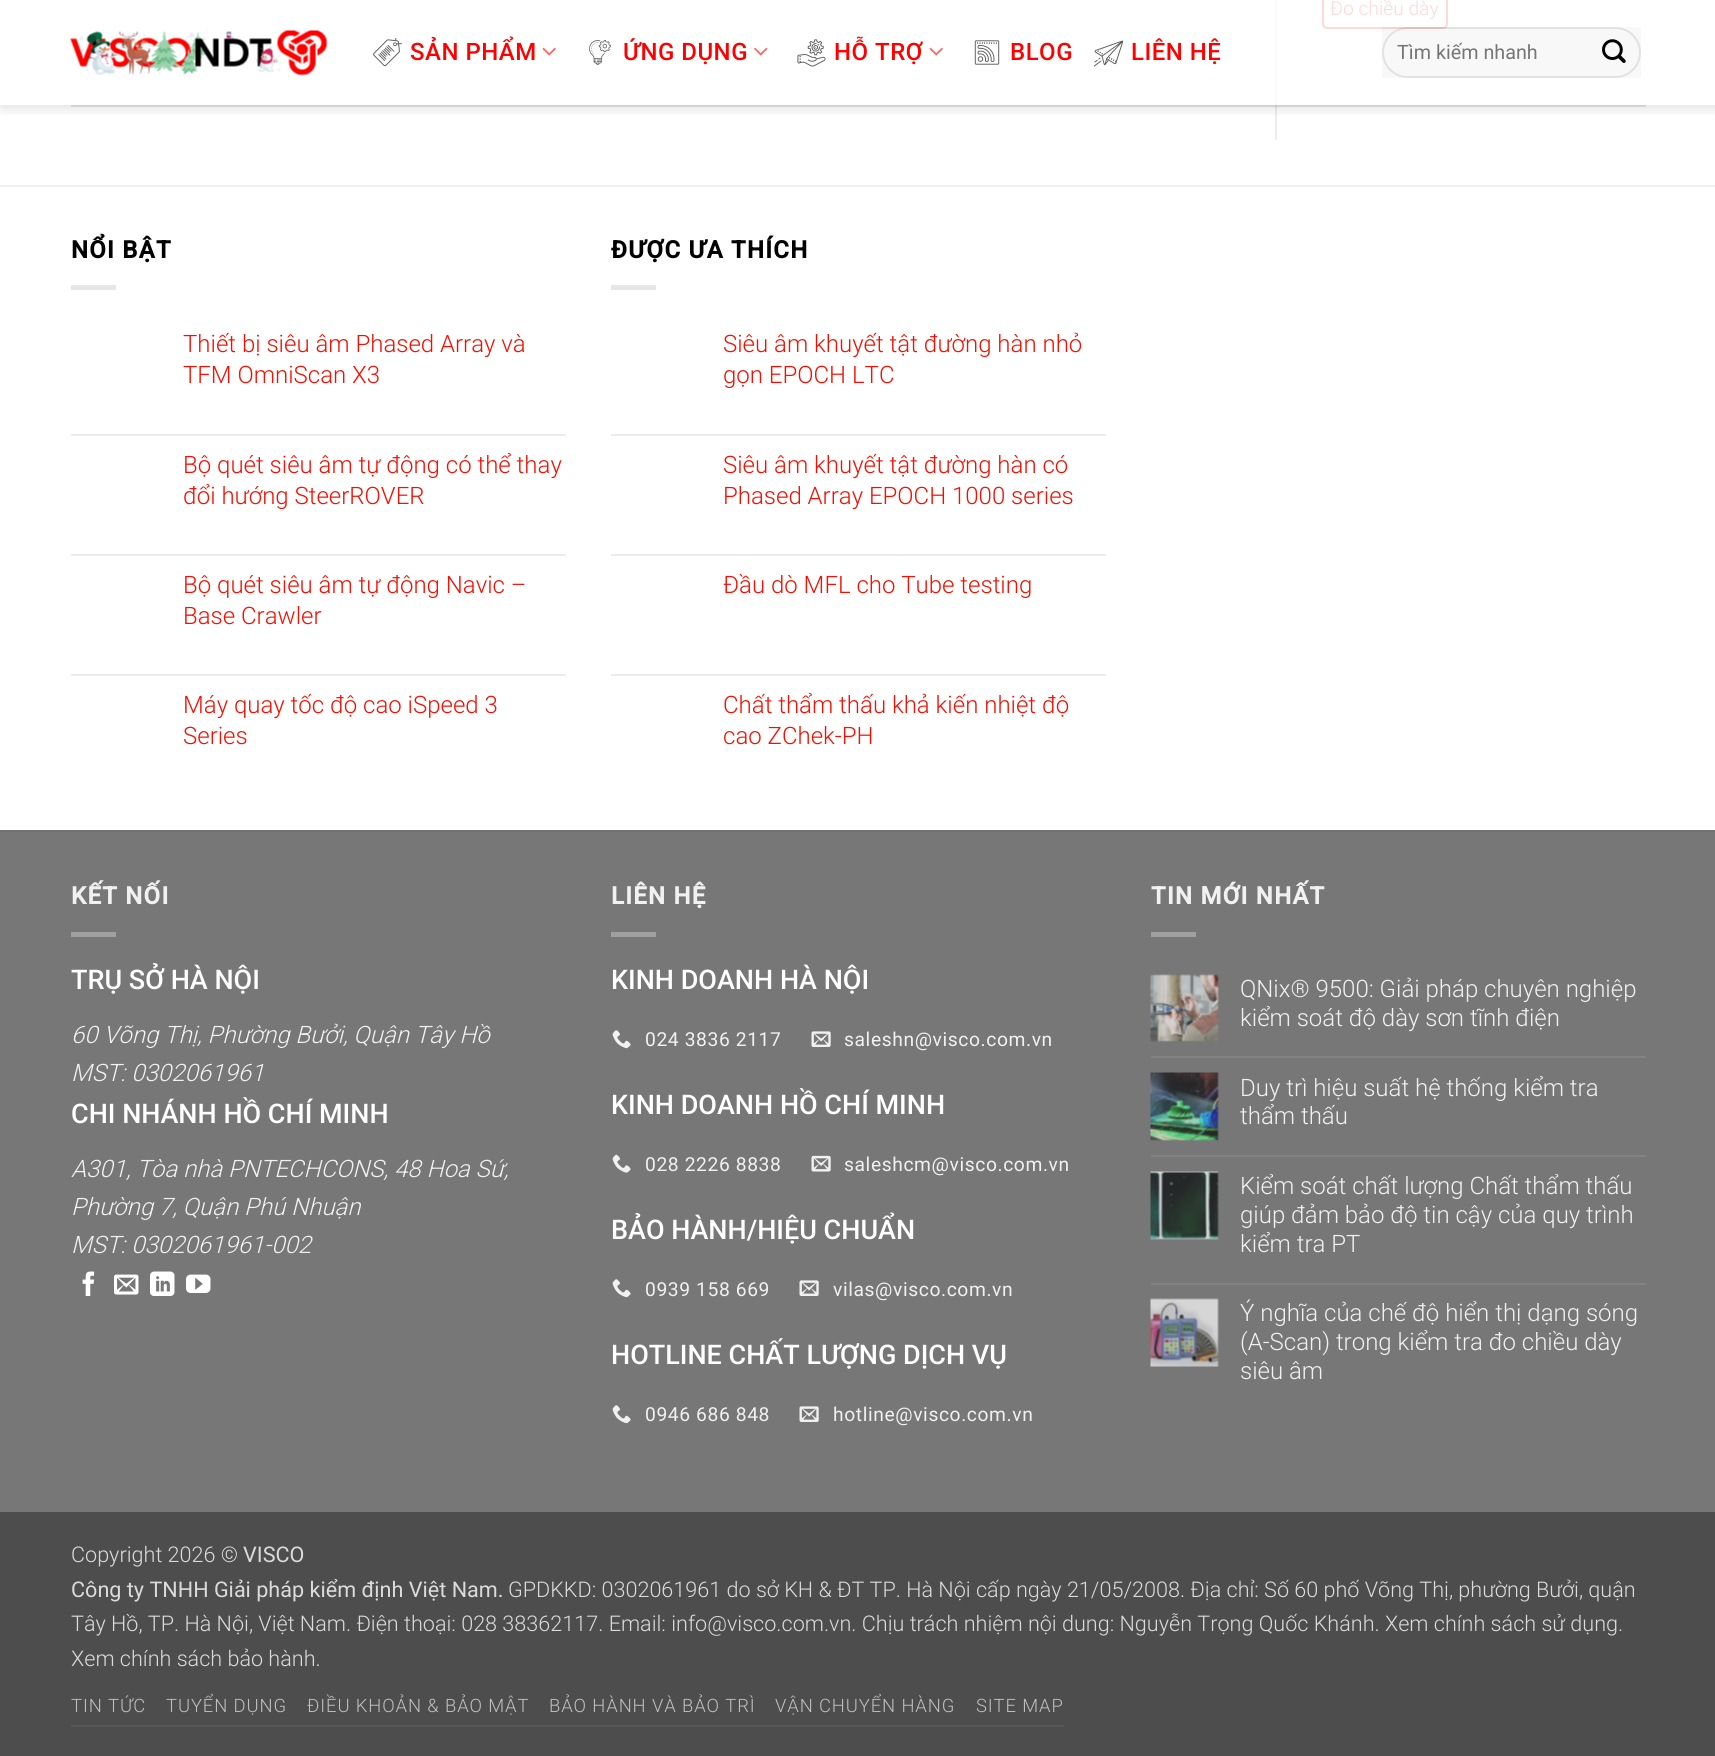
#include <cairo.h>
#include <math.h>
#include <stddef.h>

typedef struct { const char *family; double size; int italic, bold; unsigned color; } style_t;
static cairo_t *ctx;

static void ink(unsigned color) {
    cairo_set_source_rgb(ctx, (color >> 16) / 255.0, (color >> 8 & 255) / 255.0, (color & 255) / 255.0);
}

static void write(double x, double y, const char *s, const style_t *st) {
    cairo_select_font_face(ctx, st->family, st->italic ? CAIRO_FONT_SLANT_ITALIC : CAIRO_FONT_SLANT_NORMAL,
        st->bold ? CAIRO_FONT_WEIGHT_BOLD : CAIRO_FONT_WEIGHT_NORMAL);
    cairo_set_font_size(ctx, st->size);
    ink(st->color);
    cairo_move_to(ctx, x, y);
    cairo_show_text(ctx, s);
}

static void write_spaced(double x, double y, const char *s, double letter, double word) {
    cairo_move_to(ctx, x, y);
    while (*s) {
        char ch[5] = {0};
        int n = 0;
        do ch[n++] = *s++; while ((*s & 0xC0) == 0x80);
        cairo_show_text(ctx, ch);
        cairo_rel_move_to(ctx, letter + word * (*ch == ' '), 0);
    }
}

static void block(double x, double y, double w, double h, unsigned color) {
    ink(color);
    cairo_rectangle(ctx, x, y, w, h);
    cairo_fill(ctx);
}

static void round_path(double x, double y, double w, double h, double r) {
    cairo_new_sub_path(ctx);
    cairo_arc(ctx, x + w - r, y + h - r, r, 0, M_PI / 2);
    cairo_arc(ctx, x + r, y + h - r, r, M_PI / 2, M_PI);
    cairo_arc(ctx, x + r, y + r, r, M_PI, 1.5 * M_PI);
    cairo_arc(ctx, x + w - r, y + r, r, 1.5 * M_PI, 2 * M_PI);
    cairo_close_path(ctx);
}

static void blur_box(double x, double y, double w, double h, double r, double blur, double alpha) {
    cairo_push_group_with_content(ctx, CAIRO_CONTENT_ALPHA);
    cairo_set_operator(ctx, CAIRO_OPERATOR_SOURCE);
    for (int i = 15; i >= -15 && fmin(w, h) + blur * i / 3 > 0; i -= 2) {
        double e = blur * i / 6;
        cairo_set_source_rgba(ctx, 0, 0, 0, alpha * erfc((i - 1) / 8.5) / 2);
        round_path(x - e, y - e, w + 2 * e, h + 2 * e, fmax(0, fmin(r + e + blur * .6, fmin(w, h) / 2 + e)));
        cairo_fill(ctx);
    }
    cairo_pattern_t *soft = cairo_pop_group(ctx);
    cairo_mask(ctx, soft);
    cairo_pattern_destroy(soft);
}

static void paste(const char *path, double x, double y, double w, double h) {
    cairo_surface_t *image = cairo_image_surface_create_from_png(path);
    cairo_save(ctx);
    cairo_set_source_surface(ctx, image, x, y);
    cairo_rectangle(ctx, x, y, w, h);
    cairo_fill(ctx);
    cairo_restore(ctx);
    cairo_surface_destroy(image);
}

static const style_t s1 = {"Roboto Light", 19.25, 0, 0, 0xfdd9d7};
static const style_t s2 = {"Roboto", 19.75, 0, 0, 0x757575};
static const style_t s3 = {"Roboto Light", 24, 0, 0, 0xf40f02};
static const style_t s4 = {"Roboto Medium", 27, 0, 0, 0xffffff};
static const style_t s5 = {"Roboto Light", 24, 1, 0, 0xf1f1f1};
static const style_t s6 = {"Roboto Light", 24, 0, 0, 0xf1f1f1};
static const style_t s7 = {"Roboto Light", 21.6, 0, 0, 0xdbdbdb};
static const style_t s8 = {"Roboto", 21.6, 0, 0, 0xdbdbdb};

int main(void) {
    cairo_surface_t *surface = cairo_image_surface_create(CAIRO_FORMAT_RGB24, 1715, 1756);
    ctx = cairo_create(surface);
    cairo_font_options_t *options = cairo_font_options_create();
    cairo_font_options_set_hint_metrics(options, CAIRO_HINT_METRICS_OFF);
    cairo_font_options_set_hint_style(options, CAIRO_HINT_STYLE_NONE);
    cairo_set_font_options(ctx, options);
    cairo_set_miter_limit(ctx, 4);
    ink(0xffffff);
    cairo_paint(ctx);
    block(1275, 105, 2, 35, 0xececec);
    block(1275, 0, 2, 105, 0xfbfbfb);
    round_path(1323, -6, 124, 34, 4);
    ink(0xfdd9d7);
    cairo_stroke(ctx);
    write(1330, 15, "Đo chiều dày", &s1);
    cairo_save(ctx);
    cairo_rectangle(ctx, 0, 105, 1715, 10);
    cairo_clip(ctx);
    ink(0x000000);
    blur_box(2, 2, 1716, 105, 0, 7.5, 0.15);
    cairo_restore(ctx);
    paste("pic1.png", 70, 30, 258, 46);
    paste("pic2.png", 373, 38, 29, 29);
    cairo_select_font_face(ctx, "Roboto Medium", CAIRO_FONT_SLANT_NORMAL, CAIRO_FONT_WEIGHT_NORMAL);
    cairo_set_font_size(ctx, 24);
    ink(0xff0000);
    write_spaced(410, 60, "SẢN PHẨM", 0.5, 0);
    paste("pic3.png", 542, 47, 14, 9);
    paste("pic4.png", 589, 40, 22, 25);
    write_spaced(623, 60, "ỨNG DỤNG", 0.5, 0);
    paste("pic5.png", 754, 47, 14, 9);
    paste("pic6.png", 797, 39, 29, 28);
    write_spaced(834, 60, "HỖ TRỢ", 0.5, 0);
    paste("pic3.png", 929, 47, 14, 9);
    paste("pic7.png", 974, 40, 26, 25);
    write_spaced(1010, 60, "BLOG", 0.5, 0);
    paste("pic8.png", 1094, 40, 30, 27);
    write_spaced(1131, 60, "LIÊN HỆ", 0.5, 0);
    cairo_set_source_rgba(ctx, 0, 0, 0, 0.03);
    cairo_rectangle(ctx, 1382, 27, 259, 51);
    cairo_fill(ctx);
    round_path(1383, 28, 257, 49, 24.5);
    cairo_set_source_rgba(ctx, 0, 0, 0, 0.09);
    cairo_stroke(ctx);
    write(1397, 59, "Tìm kiếm nhanh", &s2);
    paste("pic9.png", 1602, 39, 24, 24);
    cairo_set_source_rgba(ctx, 0, 0, 0, 0.1);
    cairo_rectangle(ctx, 71, 105, 1575, 2);
    cairo_fill(ctx);
    block(0, 185, 1715, 2, 0xf2f2f2);
    cairo_select_font_face(ctx, "Roboto", CAIRO_FONT_SLANT_NORMAL, CAIRO_FONT_WEIGHT_BOLD);
    cairo_set_font_size(ctx, 24);
    ink(0x000000);
    write_spaced(71, 258, "NỔI BẬT", 1.25, 0);
    block(71, 285, 45, 5, 0xe6e6e6);
    write(183, 352, "Thiết bị siêu âm Phased Array và", &s3);
    write(183, 383, "TFM OmniScan X3", &s3);
    block(71, 434, 495, 2, 0xececec);
    write(183, 473, "Bộ quét siêu âm tự động có thể thay", &s3);
    write(183, 504, "đổi hướng SteerROVER", &s3);
    block(71, 554, 495, 2, 0xececec);
    write(183, 593, "Bộ quét siêu âm tự động Navic –", &s3);
    write(183, 624, "Base Crawler", &s3);
    block(71, 674, 495, 2, 0xececec);
    write(183, 713, "Máy quay tốc độ cao iSpeed 3", &s3);
    write(183, 744, "Series", &s3);
    cairo_select_font_face(ctx, "Roboto", CAIRO_FONT_SLANT_NORMAL, CAIRO_FONT_WEIGHT_BOLD);
    ink(0x000000);
    write_spaced(611, 258, "ĐƯỢC ƯA THÍCH", 1.25, 0);
    block(611, 285, 45, 5, 0xe6e6e6);
    write(723, 352, "Siêu âm khuyết tật đường hàn nhỏ", &s3);
    write(723, 383, "gọn EPOCH LTC", &s3);
    block(611, 434, 495, 2, 0xececec);
    write(723, 473, "Siêu âm khuyết tật đường hàn có", &s3);
    write(723, 504, "Phased Array EPOCH 1000 series", &s3);
    block(611, 554, 495, 2, 0xececec);
    write(723, 593, "Đầu dò MFL cho Tube testing", &s3);
    block(611, 674, 495, 2, 0xececec);
    write(723, 713, "Chất thẩm thấu khả kiến nhiệt độ", &s3);
    write(723, 744, "cao ZChek-PH", &s3);
    block(0, 832, 1715, 680, 0x777777);
    block(0, 830, 1715, 2, 0x717171);
    cairo_select_font_face(ctx, "Roboto", CAIRO_FONT_SLANT_NORMAL, CAIRO_FONT_WEIGHT_BOLD);
    ink(0xf1f1f1);
    write_spaced(71, 904, "KẾT NỐI", 1.25, 0);
    block(71, 932, 45, 5, 0xa0a0a0);
    write(71, 989, "TRỤ SỞ HÀ NỘI", &s4);
    write(71, 1043, "60 Võng Thị, Phường Bưởi, Quận Tây Hồ", &s5);
    write(71, 1081, "MST: 0302061961", &s5);
    write(71, 1123, "CHI NHÁNH HỒ CHÍ MINH", &s4);
    write(71, 1177, "A301, Tòa nhà PNTECHCONS, 48 Hoa Sứ,", &s5);
    write(71, 1215, "Phường 7, Quận Phú Nhuận", &s5);
    write(71, 1253, "MST: 0302061961-002", &s5);
    paste("pic10.png", 82, 1271, 13, 25);
    paste("pic11.png", 114, 1274, 25, 21);
    paste("pic12.png", 150, 1271, 25, 25);
    paste("pic13.png", 186, 1274, 25, 19);
    cairo_select_font_face(ctx, "Roboto", CAIRO_FONT_SLANT_NORMAL, CAIRO_FONT_WEIGHT_BOLD);
    write_spaced(611, 904, "LIÊN HỆ", 1.25, 0);
    block(611, 932, 45, 5, 0xa0a0a0);
    write(611, 989, "KINH DOANH HÀ NỘI", &s4);
    paste("pic14.png", 612, 1030, 19, 19);
    cairo_select_font_face(ctx, "Roboto", CAIRO_FONT_SLANT_NORMAL, CAIRO_FONT_WEIGHT_NORMAL);
    cairo_set_font_size(ctx, 19.25);
    ink(0xf1f1f1);
    write_spaced(645, 1046, "024 3836 2117", 0.6, 0);
    paste("pic15.png", 811, 1031, 20, 16);
    write_spaced(844, 1046, "saleshn@visco.com.vn", 0.6, 0);
    write(611, 1114, "KINH DOANH HỒ CHÍ MINH", &s4);
    paste("pic16.png", 612, 1154, 19, 19);
    cairo_select_font_face(ctx, "Roboto", CAIRO_FONT_SLANT_NORMAL, CAIRO_FONT_WEIGHT_NORMAL);
    cairo_set_font_size(ctx, 19.25);
    ink(0xf1f1f1);
    write_spaced(645, 1171, "028 2226 8838", 0.6, 0);
    paste("pic17.png", 811, 1155, 20, 17);
    write_spaced(844, 1171, "saleshcm@visco.com.vn", 0.6, 0);
    write(611, 1239, "BẢO HÀNH/HIỆU CHUẨN", &s4);
    paste("pic14.png", 612, 1279, 19, 19);
    cairo_select_font_face(ctx, "Roboto", CAIRO_FONT_SLANT_NORMAL, CAIRO_FONT_WEIGHT_NORMAL);
    cairo_set_font_size(ctx, 19.25);
    ink(0xf1f1f1);
    write_spaced(645, 1296, "0939 158 669", 0.6, 0);
    paste("pic15.png", 799, 1280, 20, 16);
    write_spaced(833, 1296, "vilas@visco.com.vn", 0.6, 0);
    write(611, 1364, "HOTLINE CHẤT LƯỢNG DỊCH VỤ", &s4);
    paste("pic14.png", 612, 1405, 19, 19);
    cairo_select_font_face(ctx, "Roboto", CAIRO_FONT_SLANT_NORMAL, CAIRO_FONT_WEIGHT_NORMAL);
    cairo_set_font_size(ctx, 19.25);
    ink(0xf1f1f1);
    write_spaced(645, 1421, "0946 686 848", 0.6, 0);
    paste("pic15.png", 799, 1406, 20, 16);
    write_spaced(833, 1421, "hotline@visco.com.vn", 0.6, 0);
    cairo_select_font_face(ctx, "Roboto", CAIRO_FONT_SLANT_NORMAL, CAIRO_FONT_WEIGHT_BOLD);
    cairo_set_font_size(ctx, 24);
    write_spaced(1151, 904, "TIN MỚI NHẤT", 1.25, 0);
    block(1151, 932, 45, 5, 0xa0a0a0);
    paste("pic18.png", 1150, 974, 69, 68);
    write(1240, 997, "QNix® 9500: Giải pháp chuyên nghiệp", &s6);
    write(1240, 1026, "kiểm soát độ dày sơn tĩnh điện", &s6);
    block(1151, 1056, 495, 2, 0x828282);
    paste("pic19.png", 1150, 1072, 69, 69);
    write(1240, 1096, "Duy trì hiệu suất hệ thống kiểm tra", &s6);
    write(1240, 1124, "thẩm thấu", &s6);
    block(1151, 1155, 495, 2, 0x828282);
    paste("pic20.png", 1150, 1171, 69, 69);
    write(1240, 1194, "Kiểm soát chất lượng Chất thẩm thấu", &s6);
    write(1240, 1223, "giúp đảm bảo độ tin cậy của quy trình", &s6);
    write(1240, 1252, "kiểm tra PT", &s6);
    block(1151, 1283, 495, 2, 0x828282);
    paste("pic21.png", 1150, 1298, 69, 69);
    write(1240, 1321, "Ý nghĩa của chế độ hiển thị dạng sóng", &s6);
    write(1240, 1350, "(A-Scan) trong kiểm tra đo chiều dày", &s6);
    write(1240, 1379, "siêu âm", &s6);
    block(0, 1512, 1715, 244, 0x4d4d4d);
    write(71, 1562, "Copyright 2026 ©", &s7);
    write(243, 1562, "VISCO", &s8);
    write(71, 1597, "Công ty TNHH Giải pháp kiểm định Việt Nam.", &s8);
    write(508, 1597, "GPDKKD: 0302061961 do sở KH & ĐT TP. Hà Nội cấp ngày 21/05/2008. Địa chỉ: Số 60 phố Võng Thị, phường Bưởi, quận", &s7);
    write(71, 1631, "Tây Hồ, TP. Hà Nội, Việt Nam. Điện thoại: 028 38362117. Email: info@visco.com.vn. Chịu trách nhiệm nội dung: Nguyễn Trọng Quốc Khánh. Xem chính sách sử dụng.", &s7);
    write(71, 1666, "Xem chính sách bảo hành.", &s7);
    block(71, 1725, 993, 2, 0x585858);
    cairo_set_font_size(ctx, 18.4);
    ink(0xbfbfbf);
    write_spaced(71, 1712, "TIN TỨC", 0.9, 0);
    write_spaced(166, 1712, "TUYỂN DỤNG", 0.9, 0);
    write_spaced(307, 1712, "ĐIỀU KHOẢN & BẢO MẬT", 0.9, 0);
    write_spaced(549, 1712, "BẢO HÀNH VÀ BẢO TRÌ", 0.9, 0);
    write_spaced(775, 1712, "VẬN CHUYỂN HÀNG", 0.9, 0);
    write_spaced(976, 1712, "SITE MAP", 0.9, 0);
    cairo_surface_write_to_png(surface, "screenshot.png");
    cairo_font_options_destroy(options);
    cairo_destroy(ctx);
    cairo_surface_destroy(surface);
    return 0;
}
